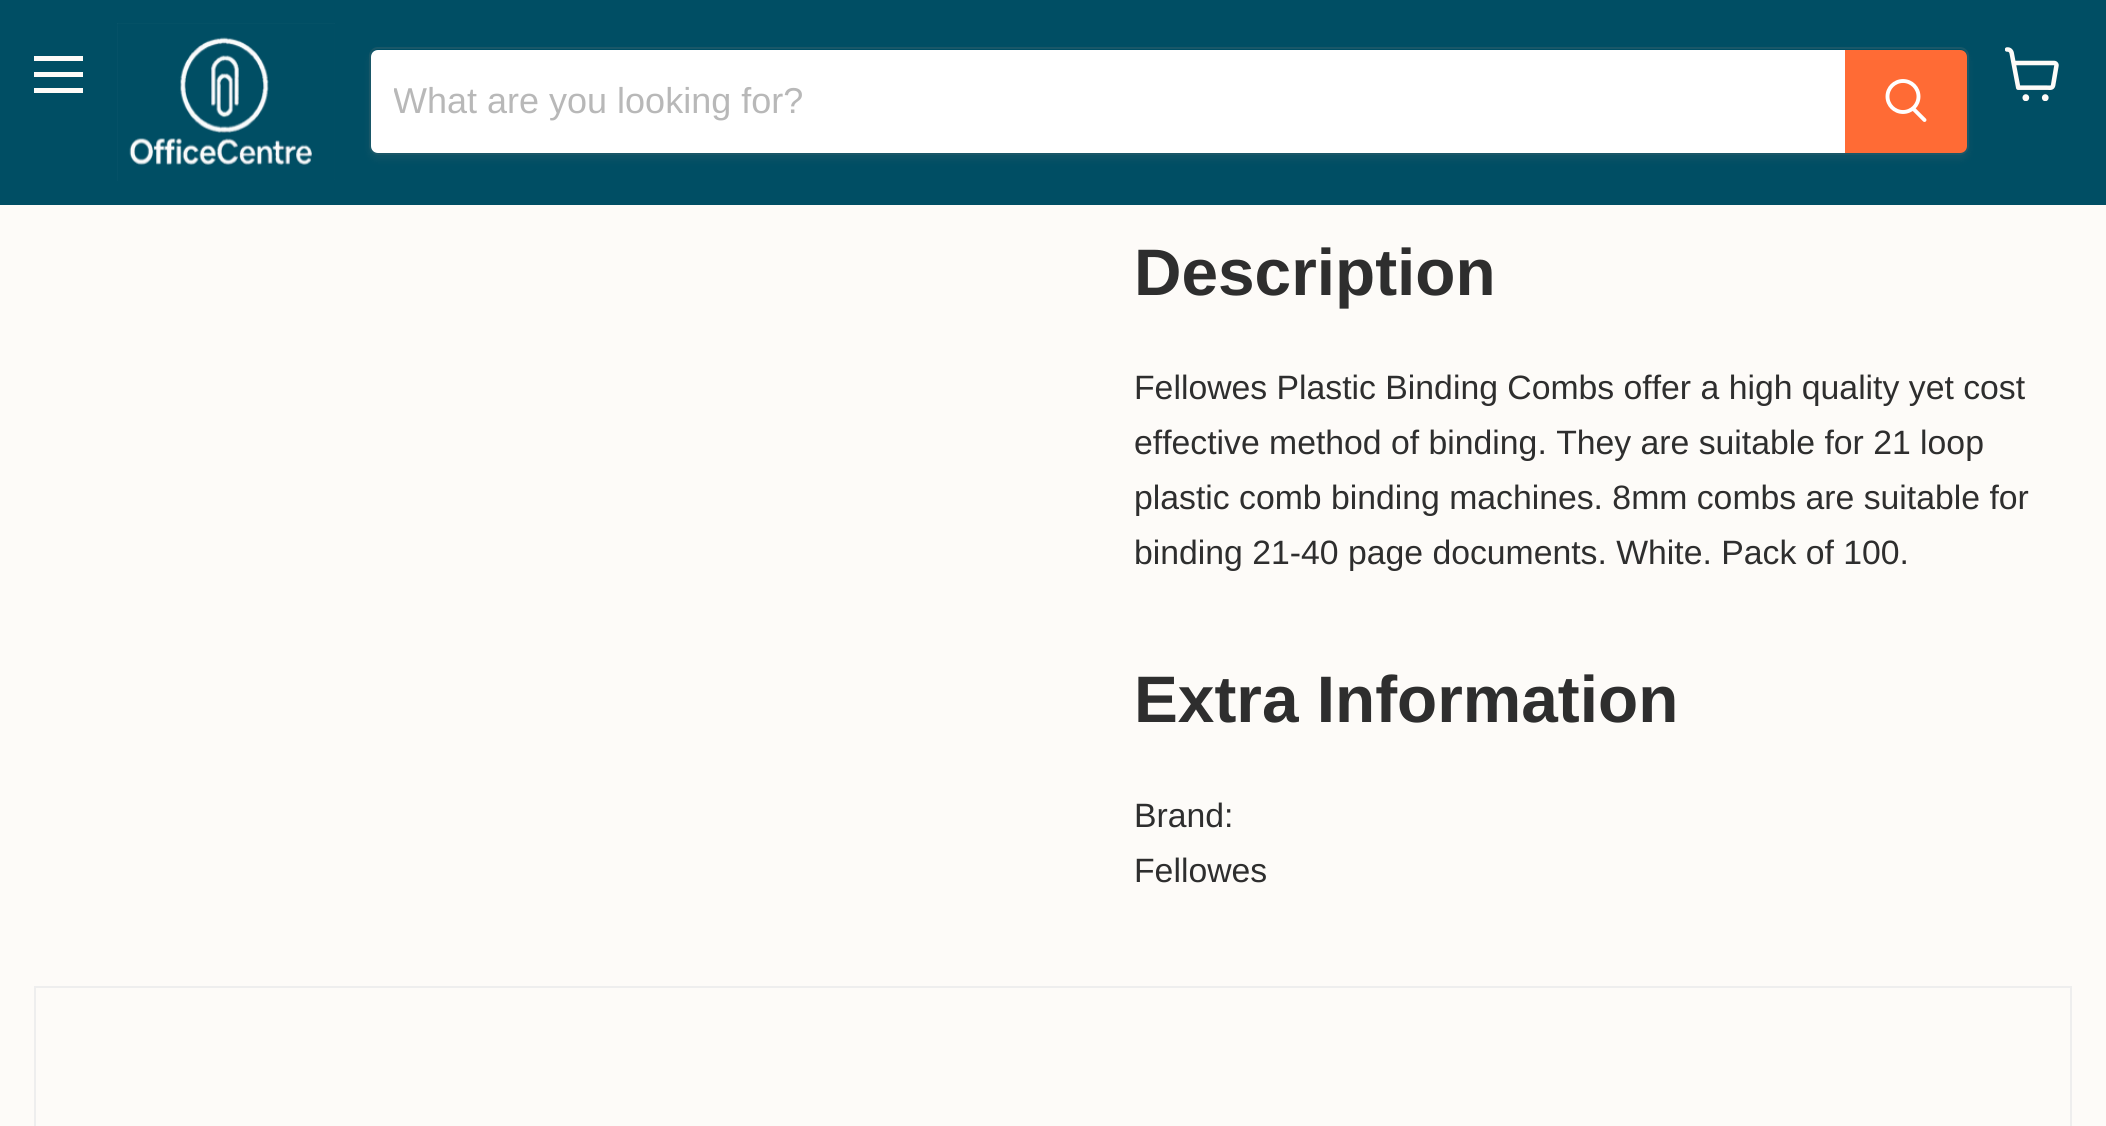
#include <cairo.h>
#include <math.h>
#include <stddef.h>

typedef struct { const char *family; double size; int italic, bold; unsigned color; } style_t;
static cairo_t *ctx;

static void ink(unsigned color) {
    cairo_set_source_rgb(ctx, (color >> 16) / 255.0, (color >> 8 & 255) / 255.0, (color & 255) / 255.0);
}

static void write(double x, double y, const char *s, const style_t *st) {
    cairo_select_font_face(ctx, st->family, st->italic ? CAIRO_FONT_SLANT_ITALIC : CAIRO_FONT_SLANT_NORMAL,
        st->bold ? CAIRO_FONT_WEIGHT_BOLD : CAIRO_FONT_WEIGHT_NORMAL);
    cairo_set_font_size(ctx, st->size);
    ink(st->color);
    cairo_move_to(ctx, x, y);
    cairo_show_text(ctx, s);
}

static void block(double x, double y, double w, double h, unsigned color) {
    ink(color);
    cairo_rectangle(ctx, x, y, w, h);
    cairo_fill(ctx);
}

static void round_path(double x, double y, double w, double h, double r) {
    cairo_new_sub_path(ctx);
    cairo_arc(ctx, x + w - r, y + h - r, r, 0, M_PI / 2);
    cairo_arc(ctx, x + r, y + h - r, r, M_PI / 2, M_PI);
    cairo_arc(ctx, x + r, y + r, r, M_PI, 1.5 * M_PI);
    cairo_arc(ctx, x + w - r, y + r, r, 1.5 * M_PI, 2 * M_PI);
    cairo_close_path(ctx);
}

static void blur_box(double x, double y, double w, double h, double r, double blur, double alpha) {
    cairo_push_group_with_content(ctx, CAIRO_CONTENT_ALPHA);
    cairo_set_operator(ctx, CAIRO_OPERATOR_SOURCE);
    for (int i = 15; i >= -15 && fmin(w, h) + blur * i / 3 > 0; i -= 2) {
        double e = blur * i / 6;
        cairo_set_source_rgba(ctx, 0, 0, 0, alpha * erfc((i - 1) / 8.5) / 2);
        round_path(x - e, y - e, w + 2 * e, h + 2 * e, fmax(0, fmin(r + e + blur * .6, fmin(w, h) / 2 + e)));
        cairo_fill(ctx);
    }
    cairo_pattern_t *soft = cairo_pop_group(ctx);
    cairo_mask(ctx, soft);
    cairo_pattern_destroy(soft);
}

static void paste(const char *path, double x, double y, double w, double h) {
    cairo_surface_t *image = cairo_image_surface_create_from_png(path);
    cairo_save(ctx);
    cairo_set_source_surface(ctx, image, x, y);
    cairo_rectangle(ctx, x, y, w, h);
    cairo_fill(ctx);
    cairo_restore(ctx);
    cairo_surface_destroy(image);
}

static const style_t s1 = {"Liberation Sans", 36, 0, 0, 0xb8b8b8};
static const style_t s2 = {"Liberation Sans", 65.75, 0, 1, 0x2e2e2e};
static const style_t s3 = {"Liberation Sans", 33.75, 0, 0, 0x2e2e2e};

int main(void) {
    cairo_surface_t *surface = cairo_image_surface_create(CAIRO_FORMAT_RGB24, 2106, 1126);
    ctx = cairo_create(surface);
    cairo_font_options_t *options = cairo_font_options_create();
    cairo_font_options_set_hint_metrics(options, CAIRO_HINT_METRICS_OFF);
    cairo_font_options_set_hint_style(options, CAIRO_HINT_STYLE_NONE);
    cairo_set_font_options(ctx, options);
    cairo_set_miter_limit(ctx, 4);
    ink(0xfdfbf8);
    cairo_paint(ctx);
    block(0, 0, 2106, 205, 0x004e64);
    block(34, 56, 49, 5, 0xfdfbf8);
    block(34, 72, 49, 5, 0xfdfbf8);
    block(34, 88, 49, 5, 0xfdfbf8);
    paste("pic1.png", 2005, 47, 54, 54);
    paste("pic2.png", 117, 23, 218, 158);
    cairo_save(ctx);
    cairo_set_fill_rule(ctx, CAIRO_FILL_RULE_EVEN_ODD);
    cairo_new_path(ctx);
    cairo_move_to(ctx, 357, 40);
    cairo_line_to(ctx, 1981, 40);
    cairo_line_to(ctx, 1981, 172);
    cairo_line_to(ctx, 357, 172);
    cairo_close_path(ctx);
    cairo_move_to(ctx, 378, 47);
    cairo_line_to(ctx, 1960, 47);
    cairo_curve_to(ctx, 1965, 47, 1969, 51, 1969, 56);
    cairo_line_to(ctx, 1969, 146);
    cairo_curve_to(ctx, 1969, 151, 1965, 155, 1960, 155);
    cairo_line_to(ctx, 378, 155);
    cairo_curve_to(ctx, 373, 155, 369, 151, 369, 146);
    cairo_line_to(ctx, 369, 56);
    cairo_curve_to(ctx, 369, 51, 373, 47, 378, 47);
    cairo_close_path(ctx);
    cairo_clip(ctx);
    ink(0x7f7e7c);
    blur_box(369, 52, 1600, 108, 9, 3.5, 0.11);
    cairo_restore(ctx);
    round_path(370, 48, 1598, 106, 8);
    cairo_set_source_rgba(ctx, 0.498, 0.494, 0.486, 0.2);
    cairo_stroke(ctx);
    ink(0xffffff);
    cairo_new_path(ctx);
    cairo_move_to(ctx, 378, 50);
    cairo_line_to(ctx, 1845, 50);
    cairo_line_to(ctx, 1845, 153);
    cairo_line_to(ctx, 378, 153);
    cairo_curve_to(ctx, 374, 153, 371, 150, 371, 146);
    cairo_line_to(ctx, 371, 57);
    cairo_curve_to(ctx, 371, 53, 374, 50, 378, 50);
    cairo_close_path(ctx);
    cairo_fill(ctx);
    cairo_save(ctx);
    cairo_rectangle(ctx, 394, 81, 1429, 41);
    cairo_clip(ctx);
    write(393, 113, "What are you looking for?", &s1);
    cairo_restore(ctx);
    ink(0xff6b35);
    cairo_new_path(ctx);
    cairo_move_to(ctx, 1846, 51);
    cairo_line_to(ctx, 1960, 51);
    cairo_curve_to(ctx, 1963.5, 51, 1966, 53.5, 1966, 57);
    cairo_line_to(ctx, 1966, 146);
    cairo_curve_to(ctx, 1966, 149.5, 1963.5, 152, 1960, 152);
    cairo_line_to(ctx, 1846, 152);
    cairo_close_path(ctx);
    cairo_fill_preserve(ctx);
    cairo_stroke(ctx);
    cairo_new_path(ctx);
    cairo_move_to(ctx, 1924.5, 120);
    cairo_line_to(ctx, 1913.5, 109);
    ink(0xffffff);
    cairo_set_line_width(ctx, 3.9);
    cairo_set_line_cap(ctx, CAIRO_LINE_CAP_ROUND);
    cairo_stroke(ctx);
    cairo_arc(ctx, 1903, 96.5, 15.5, 0, 2 * M_PI);
    cairo_set_line_cap(ctx, CAIRO_LINE_CAP_BUTT);
    cairo_stroke(ctx);
    write(1134, 295, "Description", &s2);
    write(1134, 399, "Fellowes Plastic Binding Combs offer a high quality yet cost", &s3);
    write(1134, 454, "effective method of binding. They are suitable for 21 loop", &s3);
    write(1134, 509, "plastic comb binding machines. 8mm combs are suitable for", &s3);
    write(1134, 564, "binding 21-40 page documents. White. Pack of 100.", &s3);
    write(1134, 722, "Extra Information", &s2);
    write(1134, 827, "Brand:", &s3);
    write(1134, 882, "Fellowes", &s3);
    cairo_rectangle(ctx, 35, 987, 2036, 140);
    ink(0xeeeeee);
    cairo_set_line_width(ctx, 2);
    cairo_stroke(ctx);
    cairo_surface_write_to_png(surface, "screenshot.png");
    cairo_font_options_destroy(options);
    cairo_destroy(ctx);
    cairo_surface_destroy(surface);
    return 0;
}
